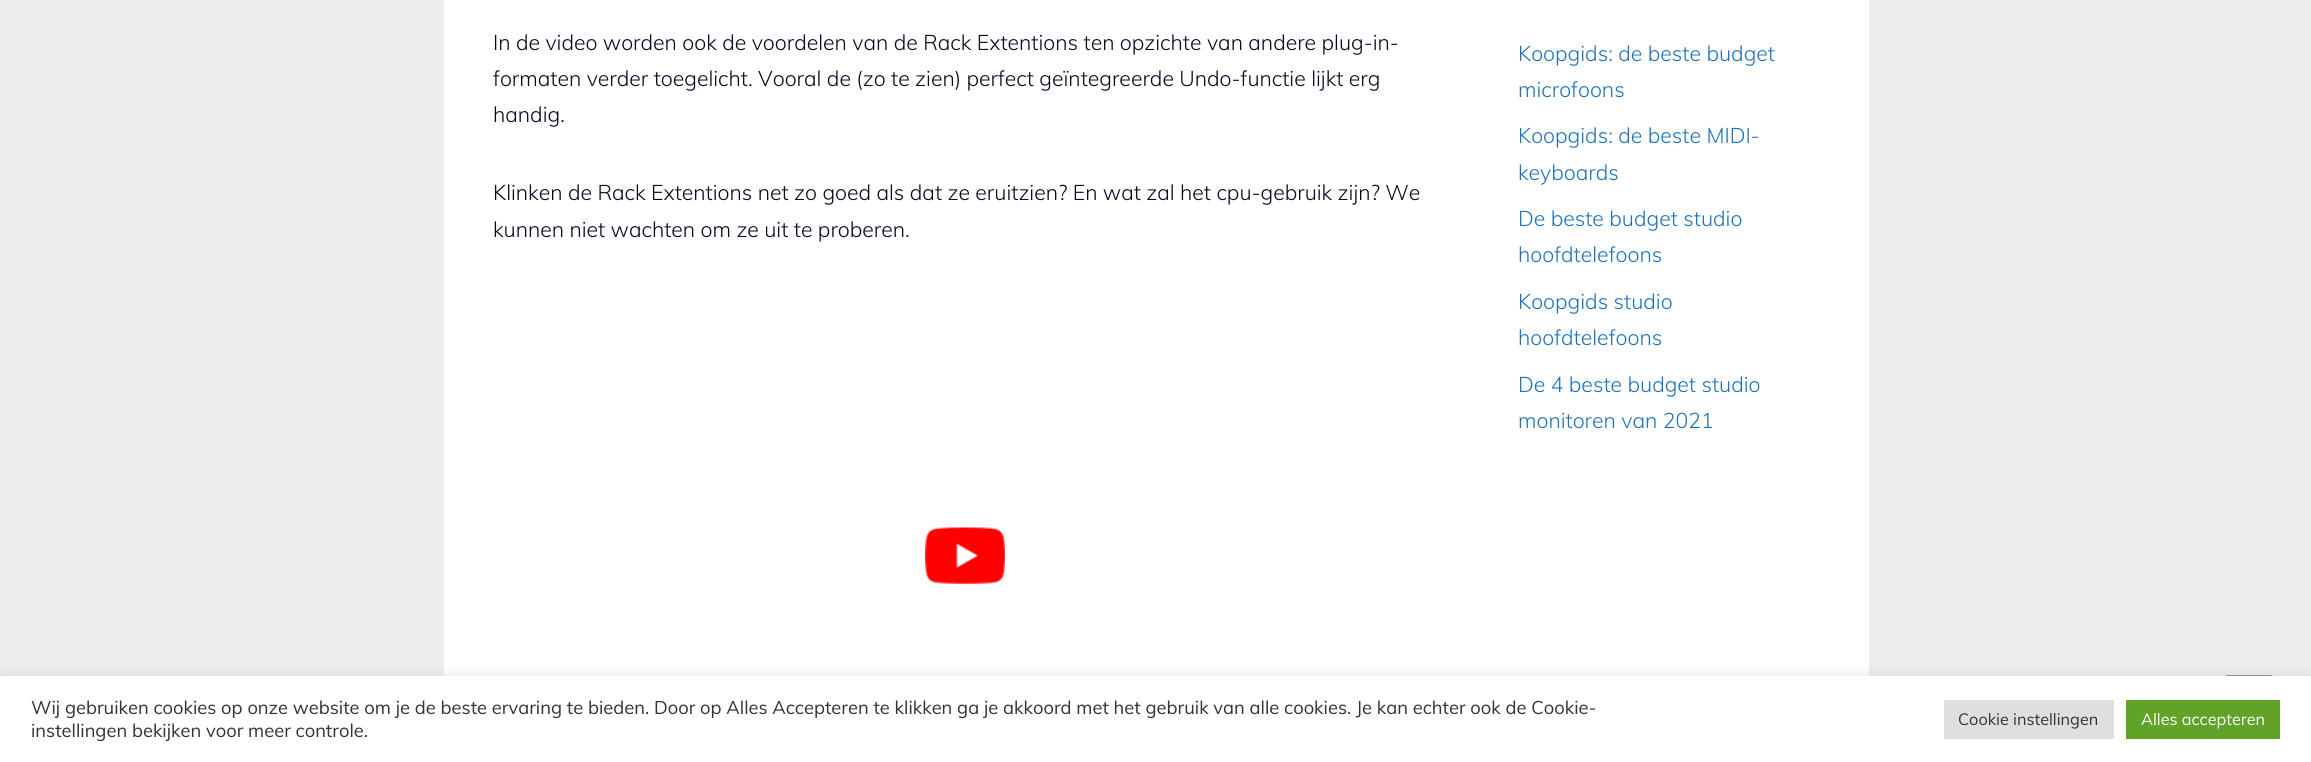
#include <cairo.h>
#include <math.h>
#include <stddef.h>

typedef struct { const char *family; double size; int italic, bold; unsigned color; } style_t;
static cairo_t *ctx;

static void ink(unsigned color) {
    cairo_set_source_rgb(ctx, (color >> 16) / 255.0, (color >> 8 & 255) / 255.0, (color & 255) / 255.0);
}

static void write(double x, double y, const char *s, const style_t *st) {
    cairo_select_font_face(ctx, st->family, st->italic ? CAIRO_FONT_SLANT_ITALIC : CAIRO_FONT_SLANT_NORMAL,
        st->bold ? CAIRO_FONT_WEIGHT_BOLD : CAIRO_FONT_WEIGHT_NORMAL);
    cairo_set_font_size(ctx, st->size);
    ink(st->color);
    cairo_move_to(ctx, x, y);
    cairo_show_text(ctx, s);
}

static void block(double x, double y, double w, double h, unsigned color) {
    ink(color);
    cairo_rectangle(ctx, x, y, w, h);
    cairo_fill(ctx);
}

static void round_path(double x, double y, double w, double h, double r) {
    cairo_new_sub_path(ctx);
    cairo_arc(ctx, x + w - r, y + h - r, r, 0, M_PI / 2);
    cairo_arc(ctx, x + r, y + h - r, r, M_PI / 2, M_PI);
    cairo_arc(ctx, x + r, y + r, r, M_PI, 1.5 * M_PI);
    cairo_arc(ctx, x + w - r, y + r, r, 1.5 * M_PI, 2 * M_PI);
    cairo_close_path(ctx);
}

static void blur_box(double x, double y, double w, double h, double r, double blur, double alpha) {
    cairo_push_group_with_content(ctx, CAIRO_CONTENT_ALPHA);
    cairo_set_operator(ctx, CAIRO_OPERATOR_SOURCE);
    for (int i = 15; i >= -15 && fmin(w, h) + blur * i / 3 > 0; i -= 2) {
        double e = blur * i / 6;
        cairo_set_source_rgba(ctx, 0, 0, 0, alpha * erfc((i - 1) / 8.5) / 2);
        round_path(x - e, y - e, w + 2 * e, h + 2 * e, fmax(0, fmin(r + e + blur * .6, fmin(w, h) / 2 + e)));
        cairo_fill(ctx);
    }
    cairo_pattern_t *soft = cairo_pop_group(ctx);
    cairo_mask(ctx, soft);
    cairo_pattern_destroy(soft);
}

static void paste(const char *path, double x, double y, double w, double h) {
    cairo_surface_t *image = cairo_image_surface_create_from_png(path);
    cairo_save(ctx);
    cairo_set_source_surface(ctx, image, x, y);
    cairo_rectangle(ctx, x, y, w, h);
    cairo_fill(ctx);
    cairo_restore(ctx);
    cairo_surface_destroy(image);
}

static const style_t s1 = {"Muli Light", 21.25, 0, 0, 0x0b0521};
static const style_t s2 = {"Muli Light", 21.25, 0, 0, 0x1e72bd};
static const style_t s3 = {"Muli", 18.33, 0, 0, 0x333333};
static const style_t s4 = {"Muli", 16.25, 0, 0, 0x333333};
static const style_t s5 = {"Muli", 16.25, 0, 0, 0xffffff};

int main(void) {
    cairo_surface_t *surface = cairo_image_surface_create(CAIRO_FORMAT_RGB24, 2311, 762);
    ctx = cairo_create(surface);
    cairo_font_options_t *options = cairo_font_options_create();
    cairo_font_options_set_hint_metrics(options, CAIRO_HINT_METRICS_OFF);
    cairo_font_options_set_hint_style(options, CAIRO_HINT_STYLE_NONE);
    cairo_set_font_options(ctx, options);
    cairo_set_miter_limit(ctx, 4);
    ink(0xededed);
    cairo_paint(ctx);
    block(444, 0, 1425, 676, 0xffffff);
    write(493, 50, "In de video worden ook de voordelen van de Rack Extentions ten opzichte van andere plug-in-", &s1);
    write(493, 86, "formaten verder toegelicht. Vooral de (zo te zien) perfect geïntegreerde Undo-functie lijkt erg", &s1);
    write(493, 122, "handig.", &s1);
    write(493, 200, "Klinken de Rack Extentions net zo goed als dat ze eruitzien? En wat zal het cpu-gebruik zijn? We", &s1);
    write(493, 237, "kunnen niet wachten om ze uit te proberen.", &s1);
    paste("pic1.png", 925, 527, 80, 57);
    write(1518, 61, "Koopgids: de beste budget", &s2);
    write(1518, 97, "microfoons", &s2);
    write(1518, 143, "Koopgids: de beste MIDI-", &s2);
    write(1518, 180, "keyboards", &s2);
    write(1518, 226, "De beste budget studio", &s2);
    write(1518, 262, "hoofdtelefoons", &s2);
    write(1518, 309, "Koopgids studio", &s2);
    write(1518, 345, "hoofdtelefoons", &s2);
    write(1518, 392, "De 4 beste budget studio", &s2);
    write(1518, 428, "monitoren van 2021", &s2);
    ink(0x8e8e8e);
    round_path(2224, 675, 50, 50, 4);
    cairo_fill(ctx);
    ink(0xacabab);
    blur_box(0, 675, 2311, 86, 0, 6, 0.3);
    block(0, 676, 2311, 86, 0xffffff);
    write(31, 714, "Wij gebruiken cookies op onze website om je de beste ervaring te bieden. Door op Alles Accepteren te klikken ga je akkoord met het gebruik van alle cookies. Je kan echter ook de Cookie-", &s3);
    write(31, 737, "instellingen bekijken voor meer controle.", &s3);
    block(1944, 700, 170, 39, 0xdedfe0);
    write(1958, 725, "Cookie instellingen", &s4);
    block(2126, 700, 154, 39, 0x61a229);
    write(2141, 725, "Alles accepteren", &s5);
    cairo_surface_write_to_png(surface, "screenshot.png");
    cairo_font_options_destroy(options);
    cairo_destroy(ctx);
    cairo_surface_destroy(surface);
    return 0;
}
